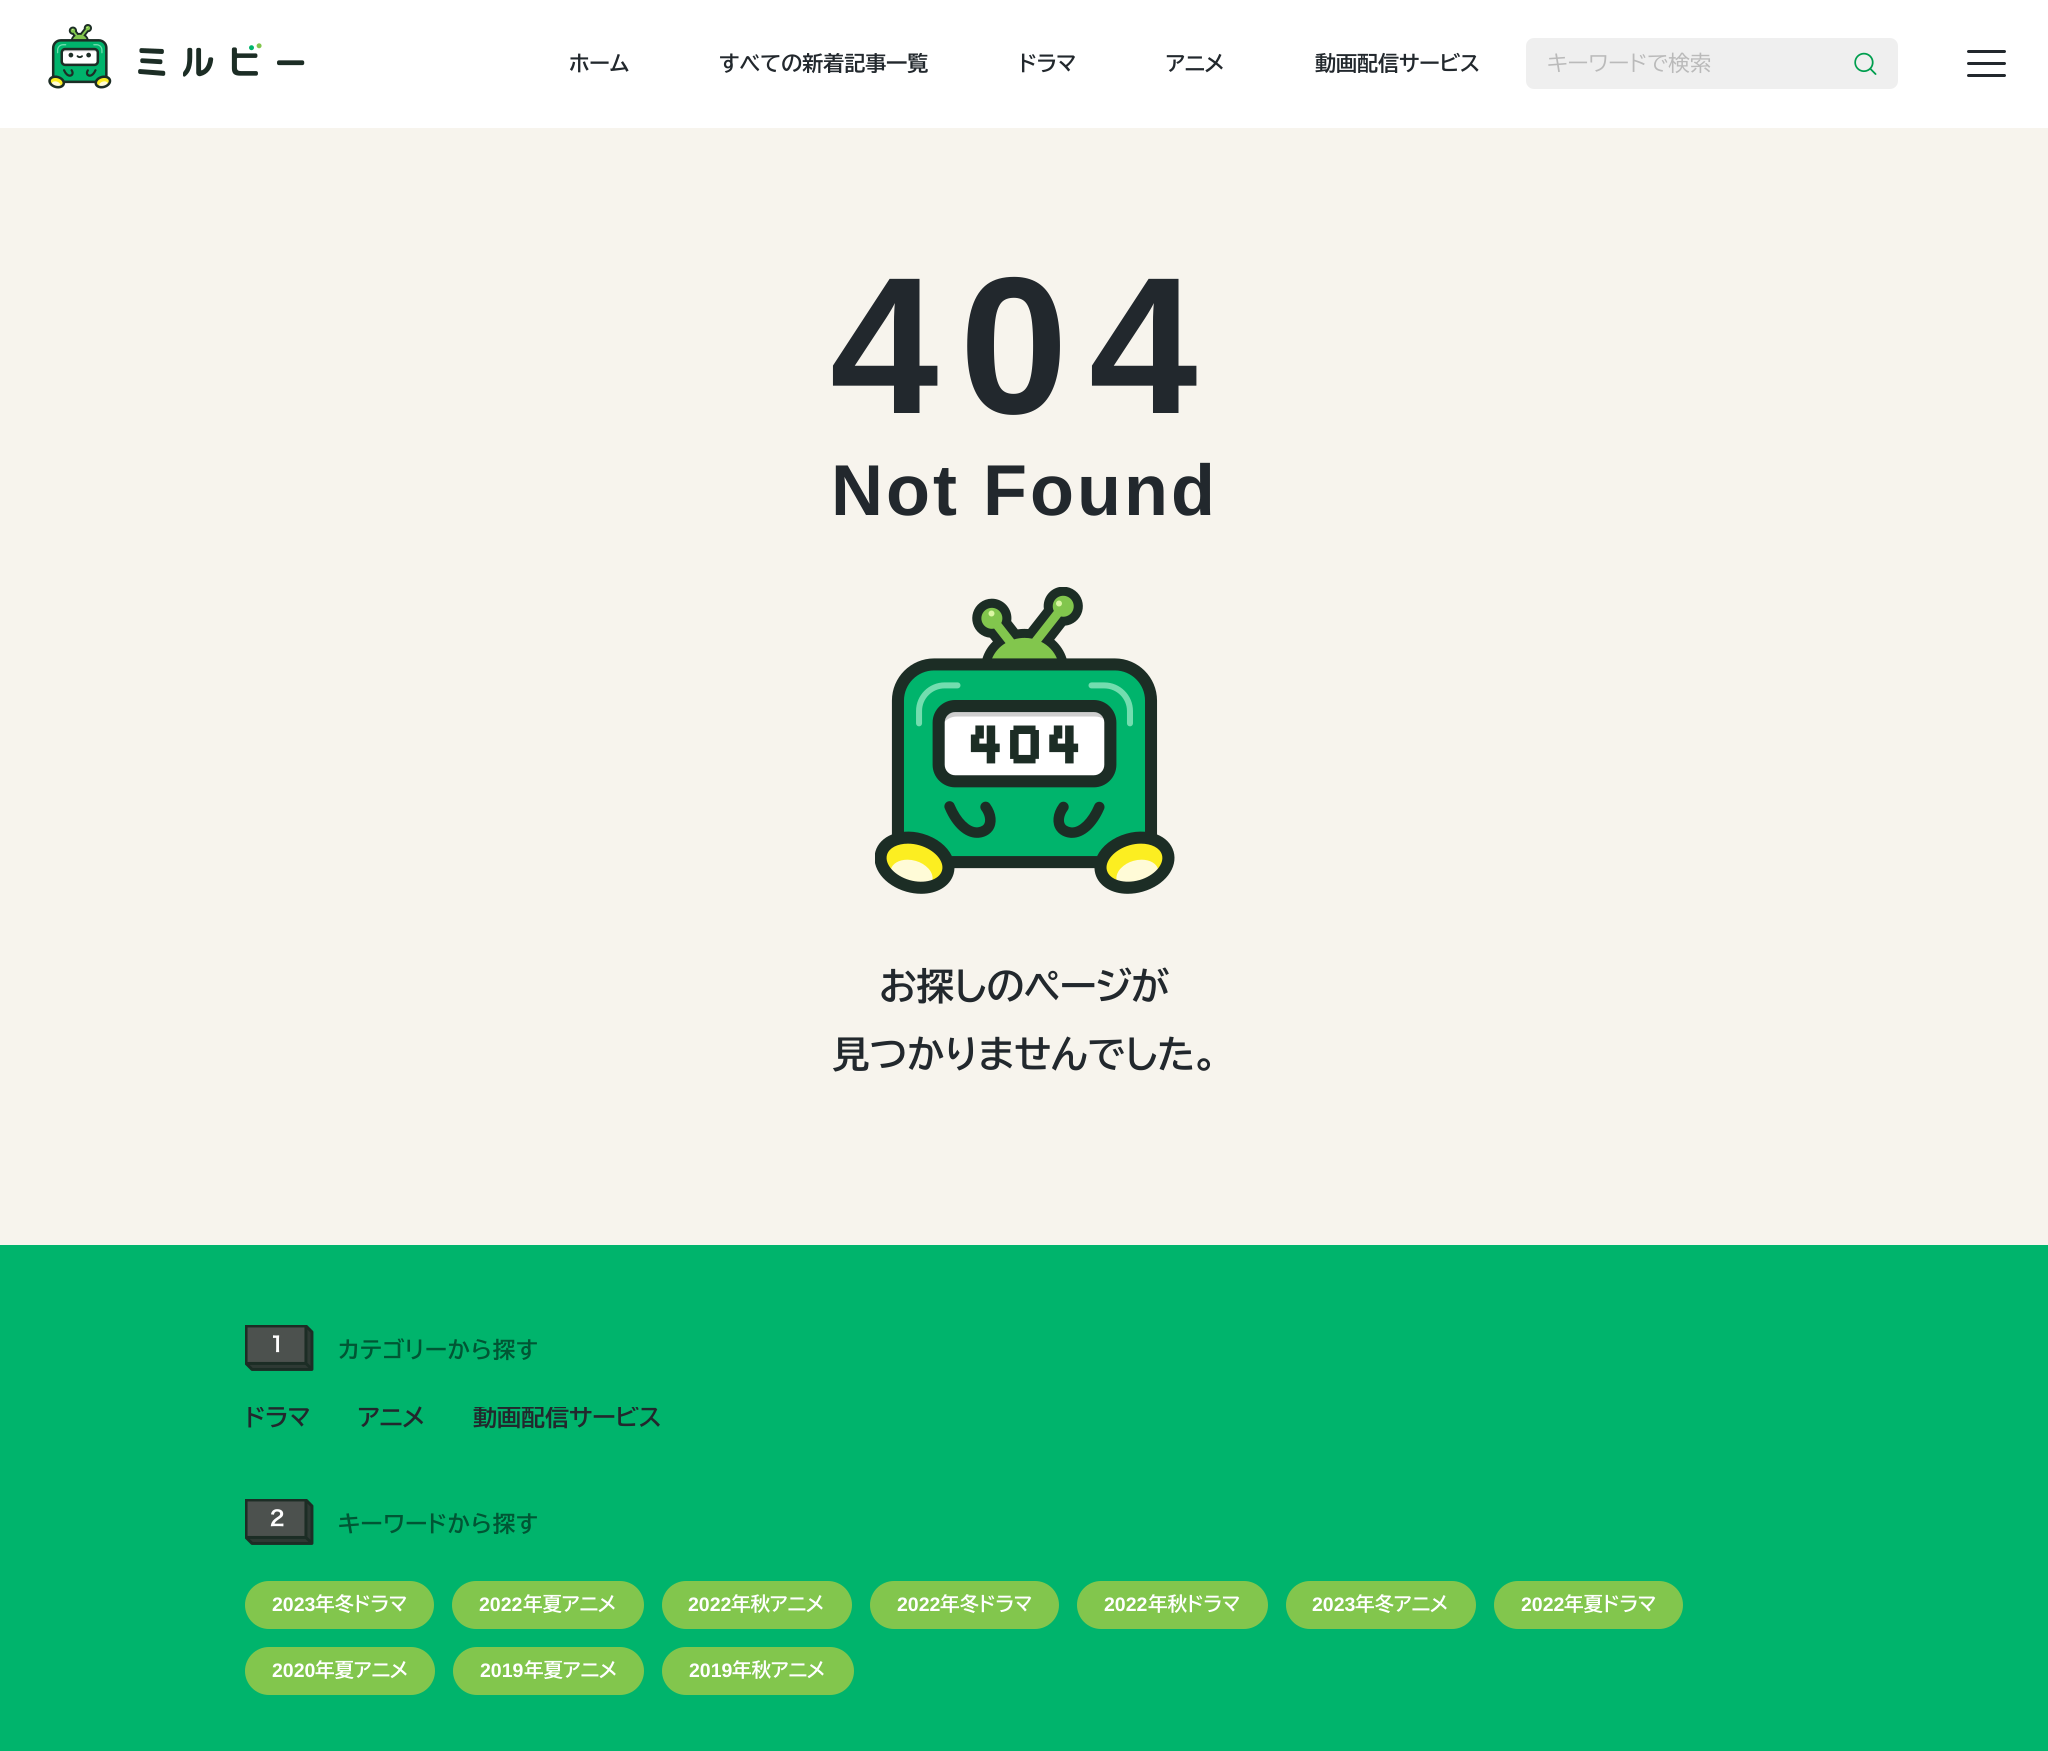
#include <cairo.h>
#include <math.h>
#include <stddef.h>

typedef struct { const char *family; double size; int italic, bold; unsigned color; } style_t;
static cairo_t *ctx;

static void ink(unsigned color) {
    cairo_set_source_rgb(ctx, (color >> 16) / 255.0, (color >> 8 & 255) / 255.0, (color & 255) / 255.0);
}

static void write(double x, double y, const char *s, const style_t *st) {
    cairo_select_font_face(ctx, st->family, st->italic ? CAIRO_FONT_SLANT_ITALIC : CAIRO_FONT_SLANT_NORMAL,
        st->bold ? CAIRO_FONT_WEIGHT_BOLD : CAIRO_FONT_WEIGHT_NORMAL);
    cairo_set_font_size(ctx, st->size);
    ink(st->color);
    cairo_move_to(ctx, x, y);
    cairo_show_text(ctx, s);
}

static void write_spaced(double x, double y, const char *s, double letter, double word) {
    cairo_move_to(ctx, x, y);
    while (*s) {
        char ch[5] = {0};
        int n = 0;
        do ch[n++] = *s++; while ((*s & 0xC0) == 0x80);
        cairo_show_text(ctx, ch);
        cairo_rel_move_to(ctx, letter + word * (*ch == ' '), 0);
    }
}

static void block(double x, double y, double w, double h, unsigned color) {
    ink(color);
    cairo_rectangle(ctx, x, y, w, h);
    cairo_fill(ctx);
}

static void round_path(double x, double y, double w, double h, double r) {
    cairo_new_sub_path(ctx);
    cairo_arc(ctx, x + w - r, y + h - r, r, 0, M_PI / 2);
    cairo_arc(ctx, x + r, y + h - r, r, M_PI / 2, M_PI);
    cairo_arc(ctx, x + r, y + r, r, M_PI, 1.5 * M_PI);
    cairo_arc(ctx, x + w - r, y + r, r, 1.5 * M_PI, 2 * M_PI);
    cairo_close_path(ctx);
}

static void paste(const char *path, double x, double y, double w, double h) {
    cairo_surface_t *image = cairo_image_surface_create_from_png(path);
    cairo_save(ctx);
    cairo_set_source_surface(ctx, image, x, y);
    cairo_rectangle(ctx, x, y, w, h);
    cairo_fill(ctx);
    cairo_restore(ctx);
    cairo_surface_destroy(image);
}

static const style_t s1 = {"BIZ UDPGothic", 21, 0, 1, 0x22282d};
static const style_t s2 = {"BIZ UDPGothic", 21.5, 0, 0, 0xbababa};
static const style_t s3 = {"BIZ UDPGothic", 37.5, 0, 1, 0x22282d};
static const style_t s4 = {"BIZ UDPGothic", 24, 0, 1, 0x22282d};
static const style_t s5 = {"Liberation Sans", 19.5, 0, 1, 0xffffff};
static const style_t s6 = {"BIZ UDPGothic", 19.5, 0, 1, 0xffffff};

int main(void) {
    cairo_surface_t *surface = cairo_image_surface_create(CAIRO_FORMAT_RGB24, 2048, 1751);
    ctx = cairo_create(surface);
    cairo_font_options_t *options = cairo_font_options_create();
    cairo_font_options_set_hint_metrics(options, CAIRO_HINT_METRICS_OFF);
    cairo_font_options_set_hint_style(options, CAIRO_HINT_STYLE_NONE);
    cairo_set_font_options(ctx, options);
    cairo_set_miter_limit(ctx, 4);
    ink(0xffffff);
    cairo_paint(ctx);
    paste("pic1.png", 48, 24, 257, 65);
    write(569, 71, "ホーム", &s1);
    write(719, 71, "すべての新着記事一覧", &s1);
    write(1019, 71, "ドラマ", &s1);
    write(1166, 71, "アニメ", &s1);
    write(1315, 71, "動画配信サービス", &s1);
    ink(0xefefef);
    round_path(1526, 38, 372, 51, 8);
    cairo_fill(ctx);
    write(1547, 71, "キーワードで検索", &s2);
    paste("pic2.png", 1854, 52, 23, 23);
    ink(0x22282d);
    round_path(1967, 62, 39, 3, 1.5);
    cairo_fill(ctx);
    round_path(1967, 50, 39, 3, 1.5);
    cairo_fill(ctx);
    round_path(1967, 74, 39, 3, 1.5);
    cairo_fill(ctx);
    block(0, 128, 2048, 1117, 0xf7f4ed);
    cairo_select_font_face(ctx, "Liberation Sans", CAIRO_FONT_SLANT_NORMAL, CAIRO_FONT_WEIGHT_BOLD);
    cairo_set_font_size(ctx, 195);
    ink(0x22282d);
    write_spaced(830, 413, "404", 21, 0);
    cairo_set_font_size(ctx, 72);
    write_spaced(831, 515, "Not Found", 3, 0);
    paste("pic3.png", 875, 587, 300, 307);
    write(879, 1000, "お探しのページが", &s3);
    write(832, 1068, "見つかりませんでした。", &s3);
    block(0, 1245, 2048, 506, 0x00b46c);
    paste("pic4.png", 245, 1325, 69, 46);
    cairo_set_font_size(ctx, 22.5);
    ink(0x005634);
    write_spaced(338, 1358, "カテゴリーから探す", 0.75, 0);
    cairo_save(ctx);
    cairo_rectangle(ctx, 245, 1407, 1560, 60);
    cairo_clip(ctx);
    write(245, 1426, "ドラマ", &s4);
    cairo_restore(ctx);
    write(358, 1426, "アニメ", &s4);
    cairo_save(ctx);
    cairo_rectangle(ctx, 245, 1407, 1560, 60);
    cairo_clip(ctx);
    write(473, 1426, "動画配信サービス", &s4);
    cairo_restore(ctx);
    paste("pic5.png", 245, 1499, 69, 46);
    cairo_set_font_size(ctx, 22.5);
    ink(0x005634);
    write_spaced(338, 1532, "キーワードから探す", 0.75, 0);
    ink(0x82c64d);
    round_path(245, 1581, 189, 48, 24);
    cairo_fill(ctx);
    write(272, 1611, "2023", &s5);
    write(315, 1611, "年冬ドラマ", &s6);
    ink(0x82c64d);
    round_path(452, 1581, 192, 48, 24);
    cairo_fill(ctx);
    write(479, 1611, "2022", &s5);
    write(523, 1611, "年夏アニメ", &s6);
    ink(0x82c64d);
    round_path(662, 1581, 190, 48, 24);
    cairo_fill(ctx);
    write(688, 1611, "2022", &s5);
    write(731, 1611, "年秋アニメ", &s6);
    ink(0x82c64d);
    round_path(870, 1581, 189, 48, 24);
    cairo_fill(ctx);
    write(897, 1611, "2022", &s5);
    write(940, 1611, "年冬ドラマ", &s6);
    ink(0x82c64d);
    round_path(1077, 1581, 191, 48, 24);
    cairo_fill(ctx);
    write(1104, 1611, "2022", &s5);
    write(1148, 1611, "年秋ドラマ", &s6);
    ink(0x82c64d);
    round_path(1286, 1581, 190, 48, 24);
    cairo_fill(ctx);
    write(1312, 1611, "2023", &s5);
    write(1355, 1611, "年冬アニメ", &s6);
    ink(0x82c64d);
    round_path(1494, 1581, 189, 48, 24);
    cairo_fill(ctx);
    write(1521, 1611, "2022", &s5);
    write(1564, 1611, "年夏ドラマ", &s6);
    ink(0x82c64d);
    round_path(245, 1647, 190, 48, 24);
    cairo_fill(ctx);
    write(272, 1677, "2020", &s5);
    write(315, 1677, "年夏アニメ", &s6);
    ink(0x82c64d);
    round_path(453, 1647, 191, 48, 24);
    cairo_fill(ctx);
    write(480, 1677, "2019", &s5);
    write(524, 1677, "年夏アニメ", &s6);
    ink(0x82c64d);
    round_path(662, 1647, 192, 48, 24);
    cairo_fill(ctx);
    write(689, 1677, "2019", &s5);
    write(732, 1677, "年秋アニメ", &s6);
    cairo_surface_write_to_png(surface, "screenshot.png");
    cairo_font_options_destroy(options);
    cairo_destroy(ctx);
    cairo_surface_destroy(surface);
    return 0;
}
